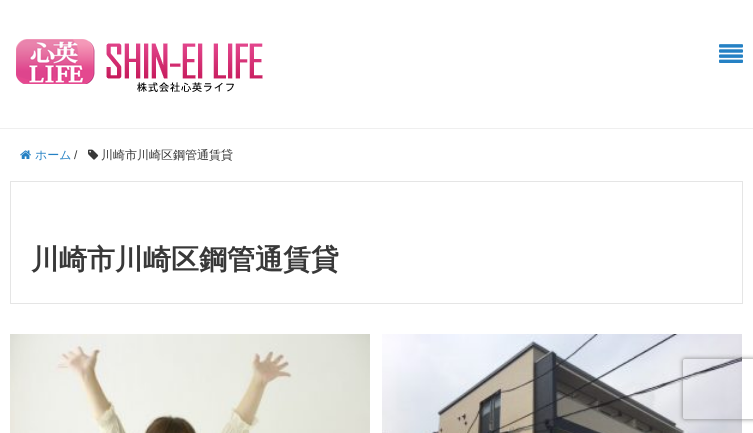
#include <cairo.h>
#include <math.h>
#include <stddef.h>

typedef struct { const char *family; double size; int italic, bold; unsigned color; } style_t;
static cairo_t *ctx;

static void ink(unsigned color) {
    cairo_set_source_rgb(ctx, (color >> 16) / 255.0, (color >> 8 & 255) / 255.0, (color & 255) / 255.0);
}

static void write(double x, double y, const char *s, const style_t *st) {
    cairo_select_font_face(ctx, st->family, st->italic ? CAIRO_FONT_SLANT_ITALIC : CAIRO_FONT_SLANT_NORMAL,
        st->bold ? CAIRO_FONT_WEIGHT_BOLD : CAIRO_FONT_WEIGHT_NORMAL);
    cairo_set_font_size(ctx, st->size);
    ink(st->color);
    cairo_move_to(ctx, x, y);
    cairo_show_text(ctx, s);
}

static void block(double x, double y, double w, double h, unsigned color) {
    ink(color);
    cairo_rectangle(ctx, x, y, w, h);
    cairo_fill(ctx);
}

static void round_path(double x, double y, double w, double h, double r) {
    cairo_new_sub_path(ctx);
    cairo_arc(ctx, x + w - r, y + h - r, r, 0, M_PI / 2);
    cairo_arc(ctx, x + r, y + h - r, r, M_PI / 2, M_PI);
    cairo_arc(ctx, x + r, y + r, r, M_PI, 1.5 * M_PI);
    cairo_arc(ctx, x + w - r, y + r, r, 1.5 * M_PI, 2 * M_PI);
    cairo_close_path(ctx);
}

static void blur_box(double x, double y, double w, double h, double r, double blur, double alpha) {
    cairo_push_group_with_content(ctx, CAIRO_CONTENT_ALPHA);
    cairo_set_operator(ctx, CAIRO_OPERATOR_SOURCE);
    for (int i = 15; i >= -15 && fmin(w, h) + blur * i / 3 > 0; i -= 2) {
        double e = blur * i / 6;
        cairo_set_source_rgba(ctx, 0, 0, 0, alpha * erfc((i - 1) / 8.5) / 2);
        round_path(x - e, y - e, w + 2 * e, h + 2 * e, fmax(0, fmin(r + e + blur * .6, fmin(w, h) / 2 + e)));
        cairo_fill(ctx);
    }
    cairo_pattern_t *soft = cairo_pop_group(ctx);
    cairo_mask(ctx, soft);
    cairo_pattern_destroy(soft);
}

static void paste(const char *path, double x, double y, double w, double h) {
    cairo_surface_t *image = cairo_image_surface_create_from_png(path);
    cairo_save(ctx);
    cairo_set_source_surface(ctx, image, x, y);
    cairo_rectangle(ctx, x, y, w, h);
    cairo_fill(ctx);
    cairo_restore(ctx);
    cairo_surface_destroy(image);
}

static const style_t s1 = {"WenQuanYi Zen Hei Medium", 12, 0, 0, 0x2581c4};
static const style_t s2 = {"Liberation Sans", 12, 0, 0, 0x383838};
static const style_t s3 = {"WenQuanYi Zen Hei Medium", 12, 0, 0, 0x383838};
static const style_t s4 = {"WenQuanYi Zen Hei", 28, 0, 1, 0x383838};

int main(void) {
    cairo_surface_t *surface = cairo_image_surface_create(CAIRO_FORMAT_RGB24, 753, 433);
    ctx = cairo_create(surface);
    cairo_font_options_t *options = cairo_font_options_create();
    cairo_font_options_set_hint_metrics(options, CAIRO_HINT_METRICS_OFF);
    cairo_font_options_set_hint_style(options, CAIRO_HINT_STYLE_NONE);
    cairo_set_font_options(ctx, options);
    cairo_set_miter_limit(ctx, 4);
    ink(0xffffff);
    cairo_paint(ctx);
    block(0, 128, 753, 1, 0xefefef);
    paste("pic1.png", 16, 39, 247, 53);
    paste("pic2.png", 719, 44, 24, 19);
    paste("pic3.png", 20, 150, 11, 9);
    write(35, 159, "ホーム", &s1);
    write(74, 159, "/", &s2);
    paste("pic4.png", 88, 149, 11, 11);
    write(101, 159, "川崎市川崎区鋼管通賃貸", &s3);
    cairo_rectangle(ctx, 10.5, 181.5, 732, 122);
    ink(0xe5e5e5);
    cairo_set_line_width(ctx, 1);
    cairo_stroke(ctx);
    write(31, 269, "川崎市川崎区鋼管通賃貸", &s4);
    paste("pic5.png", 10, 334, 360, 99);
    paste("pic6.png", 382, 334, 360, 99);
    cairo_save(ctx);
    cairo_set_fill_rule(ctx, CAIRO_FILL_RULE_EVEN_ODD);
    cairo_new_path(ctx);
    cairo_move_to(ctx, 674, 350);
    cairo_line_to(ctx, 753, 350);
    cairo_line_to(ctx, 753, 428);
    cairo_line_to(ctx, 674, 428);
    cairo_close_path(ctx);
    cairo_move_to(ctx, 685, 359);
    cairo_line_to(ctx, 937, 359);
    cairo_curve_to(ctx, 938, 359, 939, 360, 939, 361);
    cairo_line_to(ctx, 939, 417);
    cairo_curve_to(ctx, 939, 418, 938, 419, 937, 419);
    cairo_line_to(ctx, 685, 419);
    cairo_curve_to(ctx, 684, 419, 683, 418, 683, 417);
    cairo_line_to(ctx, 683, 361);
    cairo_curve_to(ctx, 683, 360, 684, 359, 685, 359);
    cairo_close_path(ctx);
    cairo_clip(ctx);
    ink(0x808080);
    blur_box(683, 359, 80, 60, 2, 2.5, 1);
    cairo_restore(ctx);
    cairo_surface_write_to_png(surface, "screenshot.png");
    cairo_font_options_destroy(options);
    cairo_destroy(ctx);
    cairo_surface_destroy(surface);
    return 0;
}
